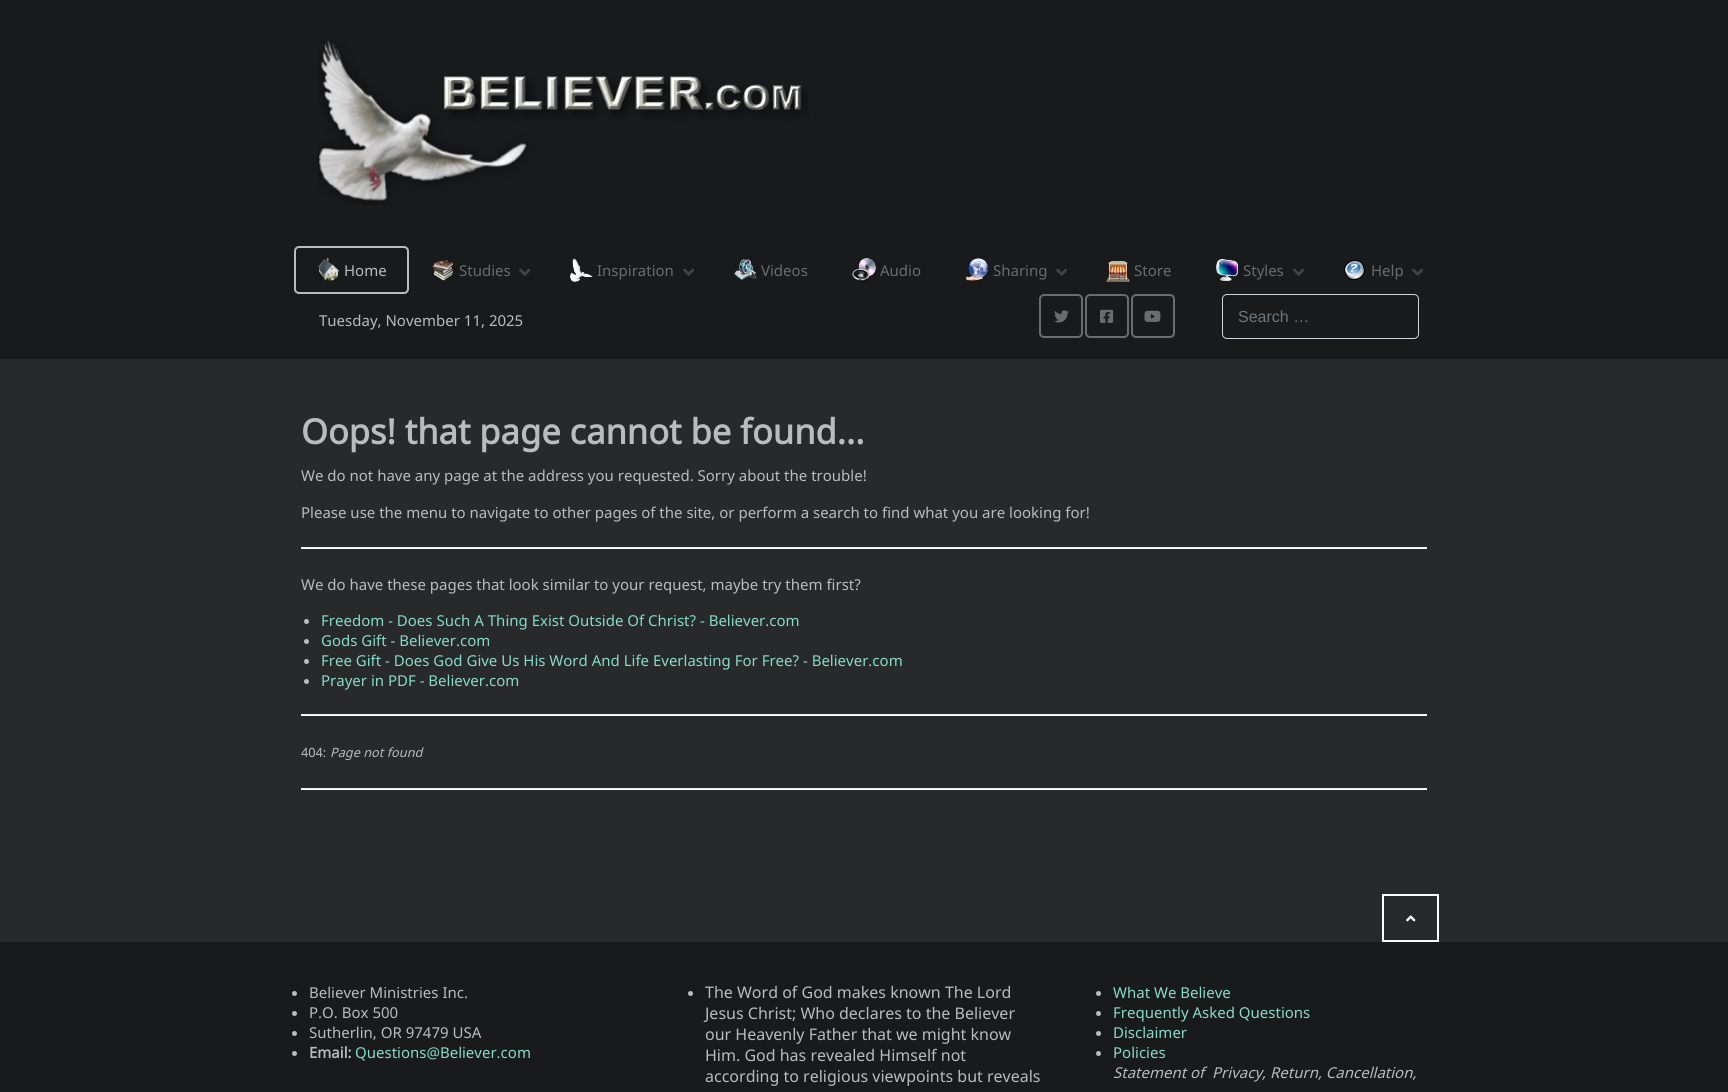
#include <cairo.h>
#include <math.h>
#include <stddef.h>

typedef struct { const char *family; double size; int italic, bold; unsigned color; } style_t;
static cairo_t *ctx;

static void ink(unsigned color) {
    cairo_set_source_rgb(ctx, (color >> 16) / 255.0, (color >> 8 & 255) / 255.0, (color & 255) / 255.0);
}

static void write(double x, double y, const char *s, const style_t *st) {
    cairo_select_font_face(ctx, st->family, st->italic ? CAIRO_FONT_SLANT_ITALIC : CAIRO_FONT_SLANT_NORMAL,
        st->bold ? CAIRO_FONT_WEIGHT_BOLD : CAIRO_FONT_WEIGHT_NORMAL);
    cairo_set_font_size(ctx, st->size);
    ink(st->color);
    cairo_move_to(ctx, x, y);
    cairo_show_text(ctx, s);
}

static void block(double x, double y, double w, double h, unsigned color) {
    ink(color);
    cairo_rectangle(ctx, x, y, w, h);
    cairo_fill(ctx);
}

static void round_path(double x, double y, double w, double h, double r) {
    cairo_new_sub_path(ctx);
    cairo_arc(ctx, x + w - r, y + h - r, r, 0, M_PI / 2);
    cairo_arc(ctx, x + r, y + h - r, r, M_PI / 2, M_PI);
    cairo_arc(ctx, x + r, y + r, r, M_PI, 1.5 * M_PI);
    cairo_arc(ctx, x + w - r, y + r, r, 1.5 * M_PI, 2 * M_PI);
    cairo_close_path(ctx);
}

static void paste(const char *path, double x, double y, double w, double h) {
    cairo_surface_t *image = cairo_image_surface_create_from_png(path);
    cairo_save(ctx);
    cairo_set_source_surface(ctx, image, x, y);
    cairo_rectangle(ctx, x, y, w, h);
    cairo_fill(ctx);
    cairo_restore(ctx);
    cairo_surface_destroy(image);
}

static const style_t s1 = {"Noto Sans", 15, 0, 0, 0xbbbbbb};
static const style_t s2 = {"Noto Sans", 15, 0, 0, 0x6a6b6c};
static const style_t s3 = {"Liberation Sans", 16, 0, 0, 0x6c757d};
static const style_t s4 = {"Noto Sans", 34.5, 0, 1, 0xbbbbbb};
static const style_t s5 = {"Noto Sans", 15, 0, 0, 0x86dbc8};
static const style_t s6 = {"Noto Sans", 12.75, 0, 0, 0xbbbbbb};
static const style_t s7 = {"Noto Sans", 12.75, 1, 0, 0xbbbbbb};
static const style_t s8 = {"Noto Sans", 15, 0, 1, 0xbbbbbb};
static const style_t s9 = {"Noto Sans", 16, 0, 0, 0xbbbbbb};
static const style_t s10 = {"Noto Sans", 15, 1, 0, 0xbbbbbb};

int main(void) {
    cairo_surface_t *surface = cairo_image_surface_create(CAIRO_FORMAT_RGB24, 1728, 1092);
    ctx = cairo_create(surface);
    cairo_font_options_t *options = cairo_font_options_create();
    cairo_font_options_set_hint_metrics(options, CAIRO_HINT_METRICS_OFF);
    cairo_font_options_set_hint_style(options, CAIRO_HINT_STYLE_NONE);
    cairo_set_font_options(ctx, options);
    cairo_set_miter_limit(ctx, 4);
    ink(0x27292b);
    cairo_paint(ctx);
    block(0, 0, 1728, 359, 0x191a1c);
    paste("pic1.png", 317, 40, 492, 165);
    round_path(295, 247, 113, 46, 4);
    ink(0xbbbbbb);
    cairo_stroke(ctx);
    paste("pic2.png", 318, 258, 22, 23);
    write(344, 276, "Home", &s1);
    paste("pic3.png", 432, 260, 22, 21);
    write(459, 276, "Studies", &s2);
    paste("pic4.png", 519, 268, 12, 8);
    paste("pic5.png", 570, 258, 23, 24);
    write(597, 276, "Inspiration", &s2);
    paste("pic4.png", 683, 268, 12, 8);
    paste("pic6.png", 734, 259, 23, 22);
    write(761, 276, "Videos", &s2);
    paste("pic7.png", 852, 258, 24, 24);
    write(880, 276, "Audio", &s2);
    paste("pic8.png", 965, 258, 24, 24);
    write(993, 276, "Sharing", &s2);
    paste("pic4.png", 1056, 268, 12, 8);
    paste("pic9.png", 1106, 260, 24, 22);
    write(1134, 276, "Store", &s2);
    paste("pic10.png", 1216, 259, 22, 23);
    write(1243, 276, "Styles", &s2);
    paste("pic4.png", 1293, 268, 12, 8);
    paste("pic11.png", 1344, 260, 21, 20);
    write(1371, 276, "Help", &s2);
    paste("pic4.png", 1412, 268, 12, 8);
    write(319, 326, "Tuesday, November 11, 2025", &s1);
    round_path(1040, 295, 42, 42, 4);
    ink(0x6a6b6c);
    cairo_stroke(ctx);
    paste("pic12.png", 1054, 310, 15, 13);
    round_path(1086, 295, 42, 42, 4);
    cairo_stroke(ctx);
    paste("pic13.png", 1100, 309, 14, 14);
    round_path(1132, 295, 42, 42, 4);
    cairo_stroke(ctx);
    paste("pic14.png", 1144, 310, 17, 12);
    round_path(1222.5, 294.5, 196, 44, 4.5);
    ink(0xced4da);
    cairo_set_line_width(ctx, 1);
    cairo_stroke(ctx);
    write(1238, 322, "Search …", &s3);
    write(301, 444, "Oops! that page cannot be found...", &s4);
    write(301, 481, "We do not have any page at the address you requested. Sorry about the trouble!", &s1);
    write(301, 518, "Please use the menu to navigate to other pages of the site, or perform a search to find what you are looking for!", &s1);
    block(301, 547, 1126, 1, 0xeeeeee);
    block(301, 548, 1126, 1, 0xffffff);
    write(301, 590, "We do have these pages that look similar to your request, maybe try them first?", &s1);
    cairo_new_path(ctx);
    cairo_arc(ctx, 306.5, 621.5, 2.5, 0, 2 * M_PI);
    cairo_fill(ctx);
    write(321, 626, "Freedom - Does Such A Thing Exist Outside Of Christ? - Believer.com", &s5);
    ink(0xbbbbbb);
    cairo_new_path(ctx);
    cairo_arc(ctx, 306.5, 641.5, 2.5, 0, 2 * M_PI);
    cairo_fill(ctx);
    write(321, 646, "Gods Gift - Believer.com", &s5);
    ink(0xbbbbbb);
    cairo_new_path(ctx);
    cairo_arc(ctx, 306.5, 661.5, 2.5, 0, 2 * M_PI);
    cairo_fill(ctx);
    write(321, 666, "Free Gift - Does God Give Us His Word And Life Everlasting For Free? - Believer.com", &s5);
    ink(0xbbbbbb);
    cairo_new_path(ctx);
    cairo_arc(ctx, 306.5, 681.5, 2.5, 0, 2 * M_PI);
    cairo_fill(ctx);
    write(321, 686, "Prayer in PDF - Believer.com", &s5);
    block(301, 714, 1126, 1, 0xeeeeee);
    block(301, 715, 1126, 1, 0xffffff);
    write(301, 757, "404:", &s6);
    write(330, 757, "Page not found", &s7);
    block(301, 788, 1126, 1, 0xeeeeee);
    block(301, 789, 1126, 1, 0xffffff);
    cairo_rectangle(ctx, 1383, 895, 55, 46);
    ink(0xfbfbfb);
    cairo_set_line_width(ctx, 2);
    cairo_stroke(ctx);
    paste("pic15.png", 1406, 915, 10, 7);
    block(0, 942, 1728, 150, 0x191a1c);
    ink(0xbbbbbb);
    cairo_arc(ctx, 294.5, 993.5, 2.5, 0, 2 * M_PI);
    cairo_fill(ctx);
    write(309, 998, "Believer Ministries Inc.", &s1);
    cairo_new_path(ctx);
    cairo_arc(ctx, 294.5, 1013.5, 2.5, 0, 2 * M_PI);
    cairo_fill(ctx);
    write(309, 1018, "P.O. Box 500", &s1);
    cairo_new_path(ctx);
    cairo_arc(ctx, 294.5, 1033.5, 2.5, 0, 2 * M_PI);
    cairo_fill(ctx);
    write(309, 1038, "Sutherlin, OR 97479 USA", &s1);
    cairo_new_path(ctx);
    cairo_arc(ctx, 294.5, 1053.5, 2.5, 0, 2 * M_PI);
    cairo_fill(ctx);
    write(309, 1058, "Email:", &s8);
    write(355, 1058, "Questions@Believer.com", &s5);
    ink(0xbbbbbb);
    cairo_new_path(ctx);
    cairo_arc(ctx, 690.5, 993.5, 2.5, 0, 2 * M_PI);
    cairo_fill(ctx);
    write(705, 998, "The Word of God makes known The Lord", &s9);
    write(705, 1019, "Jesus Christ; Who declares to the Believer", &s9);
    write(705, 1040, "our Heavenly Father that we might know", &s9);
    write(705, 1061, "Him. God has revealed Himself not", &s9);
    write(705, 1082, "according to religious viewpoints but reveals", &s9);
    cairo_new_path(ctx);
    cairo_arc(ctx, 1098.5, 993.5, 2.5, 0, 2 * M_PI);
    cairo_fill(ctx);
    write(1113, 998, "What We Believe", &s5);
    ink(0xbbbbbb);
    cairo_new_path(ctx);
    cairo_arc(ctx, 1098.5, 1013.5, 2.5, 0, 2 * M_PI);
    cairo_fill(ctx);
    write(1113, 1018, "Frequently Asked Questions", &s5);
    ink(0xbbbbbb);
    cairo_new_path(ctx);
    cairo_arc(ctx, 1098.5, 1033.5, 2.5, 0, 2 * M_PI);
    cairo_fill(ctx);
    write(1113, 1038, "Disclaimer", &s5);
    ink(0xbbbbbb);
    cairo_new_path(ctx);
    cairo_arc(ctx, 1098.5, 1053.5, 2.5, 0, 2 * M_PI);
    cairo_fill(ctx);
    write(1113, 1058, "Policies", &s5);
    write(1113, 1078, "Statement of  Privacy, Return, Cancellation,", &s10);
    cairo_surface_write_to_png(surface, "screenshot.png");
    cairo_font_options_destroy(options);
    cairo_destroy(ctx);
    cairo_surface_destroy(surface);
    return 0;
}
